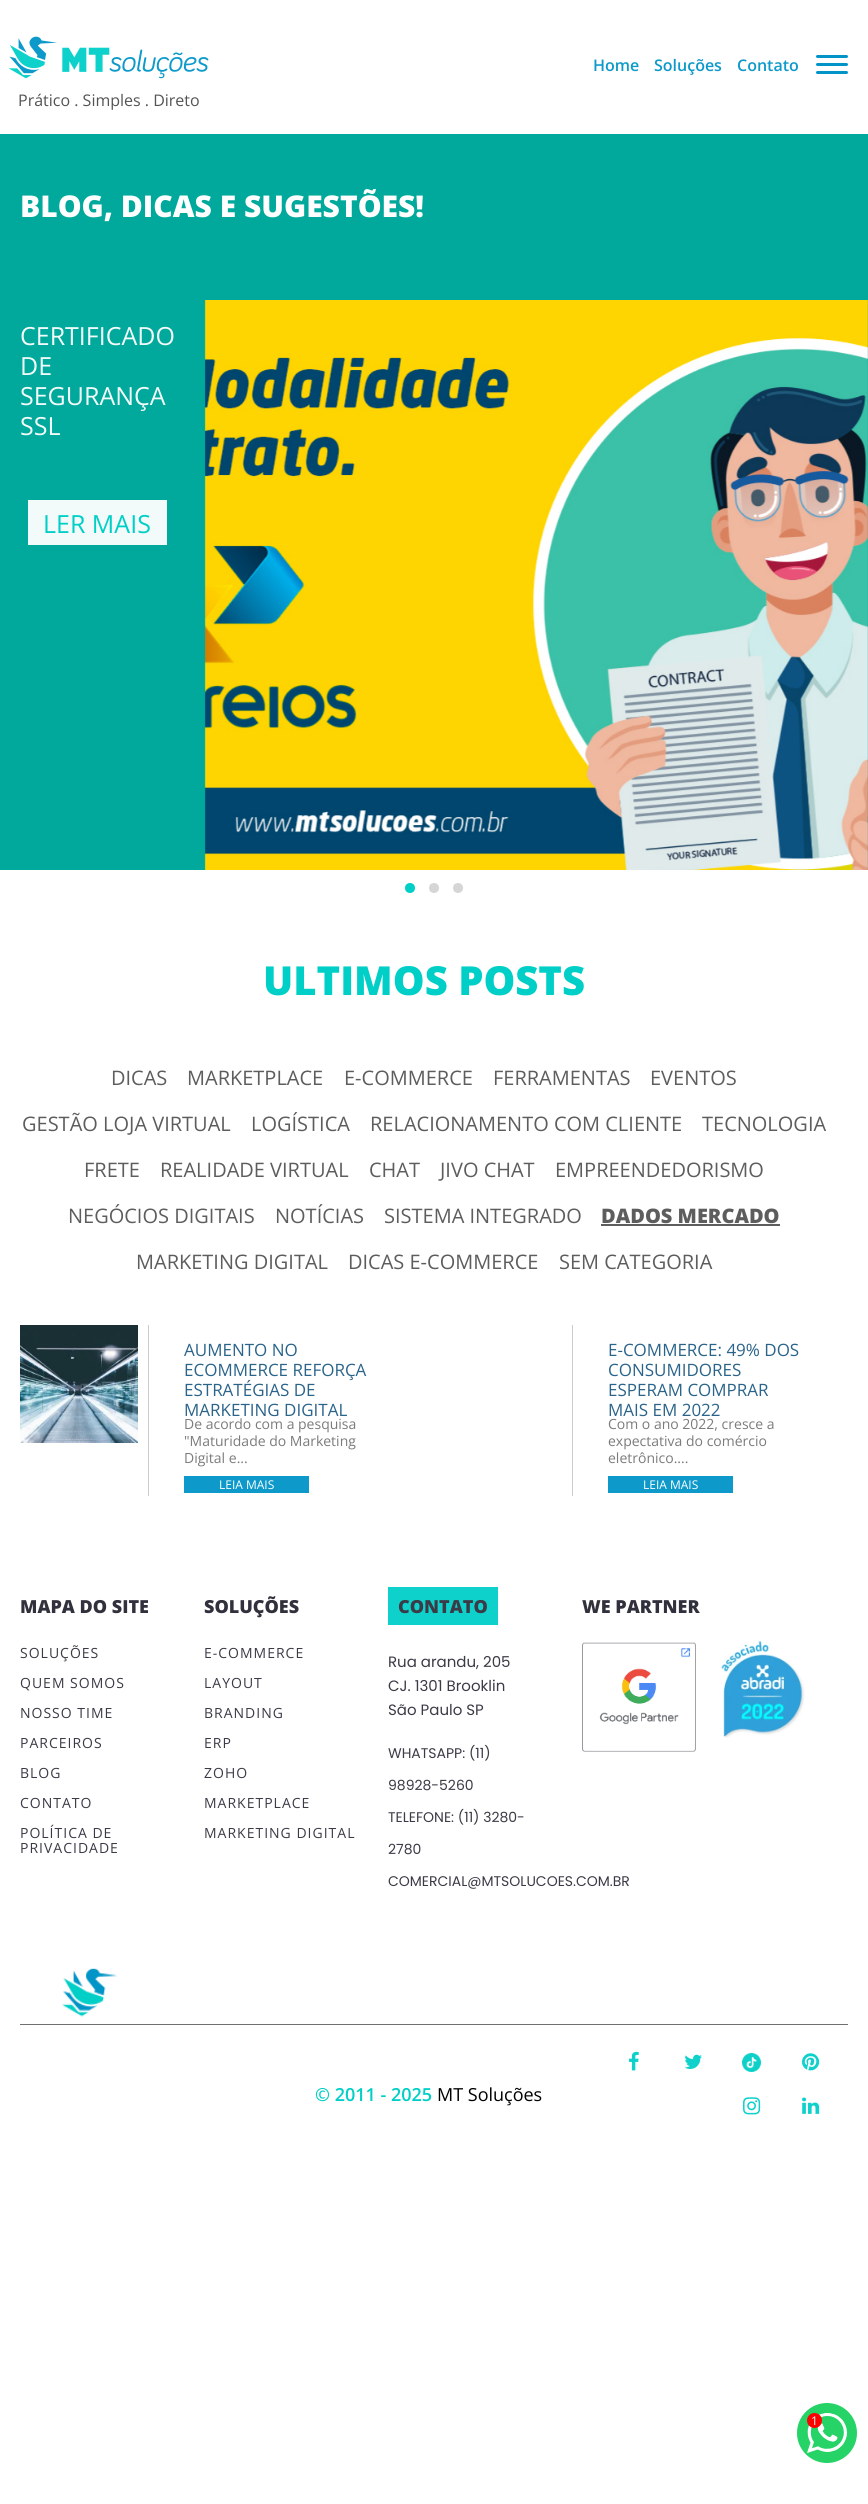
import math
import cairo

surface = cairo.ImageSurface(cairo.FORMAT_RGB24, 868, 2504)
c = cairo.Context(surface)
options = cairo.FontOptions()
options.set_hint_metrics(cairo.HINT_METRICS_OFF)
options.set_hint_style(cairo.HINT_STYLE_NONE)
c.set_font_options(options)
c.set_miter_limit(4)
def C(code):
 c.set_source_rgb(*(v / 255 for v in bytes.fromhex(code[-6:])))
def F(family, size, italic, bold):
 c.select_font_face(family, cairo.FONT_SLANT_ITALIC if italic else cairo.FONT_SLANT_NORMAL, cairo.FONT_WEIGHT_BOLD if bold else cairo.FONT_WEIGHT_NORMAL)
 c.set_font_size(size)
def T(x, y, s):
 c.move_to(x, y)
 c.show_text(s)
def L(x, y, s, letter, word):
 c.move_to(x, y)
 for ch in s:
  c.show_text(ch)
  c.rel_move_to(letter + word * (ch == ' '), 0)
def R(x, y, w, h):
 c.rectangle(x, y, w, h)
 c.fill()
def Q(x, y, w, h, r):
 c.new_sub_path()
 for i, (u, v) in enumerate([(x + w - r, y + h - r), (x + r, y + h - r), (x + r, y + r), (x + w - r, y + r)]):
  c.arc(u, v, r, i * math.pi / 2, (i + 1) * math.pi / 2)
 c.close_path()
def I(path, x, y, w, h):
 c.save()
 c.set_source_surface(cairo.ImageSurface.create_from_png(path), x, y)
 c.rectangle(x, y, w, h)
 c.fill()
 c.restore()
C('ffffff')
c.paint()
F('Open Sans SemiBold',16,0,0)
C('0d99ca')
T(593,71,'Home')
T(654,71,'Soluções')
T(737,71,'Contato')
C('0094c7')
Q(816,55,32,3,1.5)
c.fill()
Q(816,63,32,3,1.5)
c.fill()
Q(816,71,32,3,1.5)
c.fill()
I('1.png',8,36,201,43)
F('Open Sans',16,0,0)
C('545454')
T(18,106,'Prático . Simples . Direto')
C('00a99b')
R(0,134,868,736)
F('Open Sans ExtraBold',30,0,0)
C('ffffff')
T(20,217,'BLOG, DICAS E SUGESTÕES!')
F('Open Sans',25,0,0)
C('f2fbfa')
T(20,345,'CERTIFICADO')
T(20,375,'DE')
T(20,405,'SEGURANÇA')
T(20,435,'SSL')
R(28,500,139,45)
C('00cfc7')
T(43,533,'LER MAIS')
I('2.png',204,300,664,570)
c.arc(410,888,5,0,2 * math.pi)
c.fill()
C('d6d6d6')
c.arc(434,888,5,0,2 * math.pi)
c.fill()
c.arc(458,888,5,0,2 * math.pi)
c.fill()
F('Open Sans ExtraBold',40,0,0)
C('00cfc7')
T(263,995,'ULTIMOS POSTS')
F('Open Sans',20,0,0)
C('5d5d5d')
T(111,1085,'DICAS')
T(187,1085,'MARKETPLACE')
T(344,1085,'E-COMMERCE')
T(493,1085,'FERRAMENTAS')
T(650,1085,'EVENTOS')
T(22,1131,'GESTÃO LOJA VIRTUAL')
T(251,1131,'LOGÍSTICA')
T(370,1131,'RELACIONAMENTO COM CLIENTE')
T(702,1131,'TECNOLOGIA')
T(84,1177,'FRETE')
T(160,1177,'REALIDADE VIRTUAL')
T(369,1177,'CHAT')
T(440,1177,'JIVO CHAT')
T(555,1177,'EMPREENDEDORISMO')
T(68,1223,'NEGÓCIOS DIGITAIS')
T(275,1223,'NOTÍCIAS')
T(384,1223,'SISTEMA INTEGRADO')
F('Open Sans ExtraBold',20,0,0)
T(601,1223,'DADOS MERCADO')
R(601,1224,179,2)
F('Open Sans',20,0,0)
T(136,1269,'MARKETING DIGITAL')
T(348,1269,'DICAS E-COMMERCE')
T(559,1269,'SEM CATEGORIA')
I('3.png',20,1325,118,118)
C('cccccc')
R(148,1325,1,171)
F('Open Sans',17,0,0)
C('2b648a')
T(184,1356,'AUMENTO NO')
T(184,1376,'ECOMMERCE REFORÇA')
T(184,1396,'ESTRATÉGIAS DE')
T(184,1416,'MARKETING DIGITAL')
F('Open Sans',14,0,0)
C('7b7b7b')
T(184,1429,'De acordo com a pesquisa')
T(184,1446,'"Maturidade do Marketing')
T(184,1463,'Digital e...')
C('0d99ca')
R(184,1476,125,17)
F('Open Sans',12,0,0)
C('ffffff')
T(219,1489,'LEIA MAIS')
C('cccccc')
R(572,1325,1,171)
F('Open Sans',17,0,0)
C('2b648a')
T(608,1356,'E-COMMERCE: 49% DOS')
T(608,1376,'CONSUMIDORES')
T(608,1396,'ESPERAM COMPRAR')
T(608,1416,'MAIS EM 2022')
F('Open Sans',14,0,0)
C('7b7b7b')
T(608,1429,'Com o ano 2022, cresce a')
T(608,1446,'expectativa do comércio')
T(608,1463,'eletrônico....')
C('0d99ca')
R(608,1476,125,17)
F('Open Sans',12,0,0)
C('ffffff')
T(643,1489,'LEIA MAIS')
F('Open Sans ExtraBold',18,0,0)
C('31313d')
T(20,1613,'MAPA DO SITE')
F('Open Sans',14,0,0)
C('3b3b47')
L(20,1658,'SOLUÇÕES',1,0)
L(20,1688,'QUEM SOMOS',1,0)
L(20,1718,'NOSSO TIME',1,0)
L(20,1748,'PARCEIROS',1,0)
L(20,1778,'BLOG',1,0)
L(20,1808,'CONTATO',1,0)
L(20,1838,'POLÍTICA DE',1,0)
L(20,1853,'PRIVACIDADE',1,0)
F('Open Sans ExtraBold',18,0,0)
C('31313d')
T(204,1613,'SOLUÇÕES')
F('Open Sans',14,0,0)
C('3b3b47')
L(204,1658,'E-COMMERCE',1,0)
L(204,1688,'LAYOUT',1,0)
L(204,1718,'BRANDING',1,0)
L(204,1748,'ERP',1,0)
L(204,1778,'ZOHO',1,0)
L(204,1808,'MARKETPLACE',1,0)
L(204,1838,'MARKETING DIGITAL',1,0)
C('0dd1ca')
R(388,1587,110,38)
F('Open Sans ExtraBold',18,0,0)
C('3b3b47')
T(398,1613,'CONTATO')
F('Poppins',15,0,0)
T(388,1667,'Rua arandu, 205')
T(388,1691,'CJ. 1301 Brooklin')
T(388,1715,'São Paulo SP')
F('Poppins',14,0,0)
T(388,1758,'WHATSAPP: (11)')
T(388,1790,'98928-5260')
T(388,1822,'TELEFONE: (11) 3280-')
T(388,1854,'2780')
T(388,1886,'COMERCIAL@MTSOLUCOES.COM.BR')
F('Open Sans ExtraBold',18,0,0)
C('31313d')
T(582,1613,'WE PARTNER')
I('4.png',582,1642,114,110)
I('5.png',721,1640,84,98)
I('6.png',62,1968,55,49)
C('707070')
R(20,2024,828,1)
F('Open Sans SemiBold',18,0,0)
C('00cfc7')
T(315,2101,'© 2011 - 2025')
F('Open Sans',18,0,0)
C('000000')
T(437,2101,'MT Soluções')
I('7.png',629,2051,10,20)
I('8.png',684,2054,18,15)
I('9.png',742,2053,19,19)
I('10.png',802,2053,18,18)
I('11.png',743,2097,18,18)
I('12.png',802,2097,18,17)
C('25d366')
c.arc(827,2433,30,0,2 * math.pi)
c.fill()
I('13.png',807,2413,40,40)
C('ff0000')
c.arc(814.5,2420.5,7.5,0,2 * math.pi)
c.fill()
F('Open Sans',12,0,0)
C('ffffff')
T(811,2425,'1')
surface.write_to_png('o.png')
